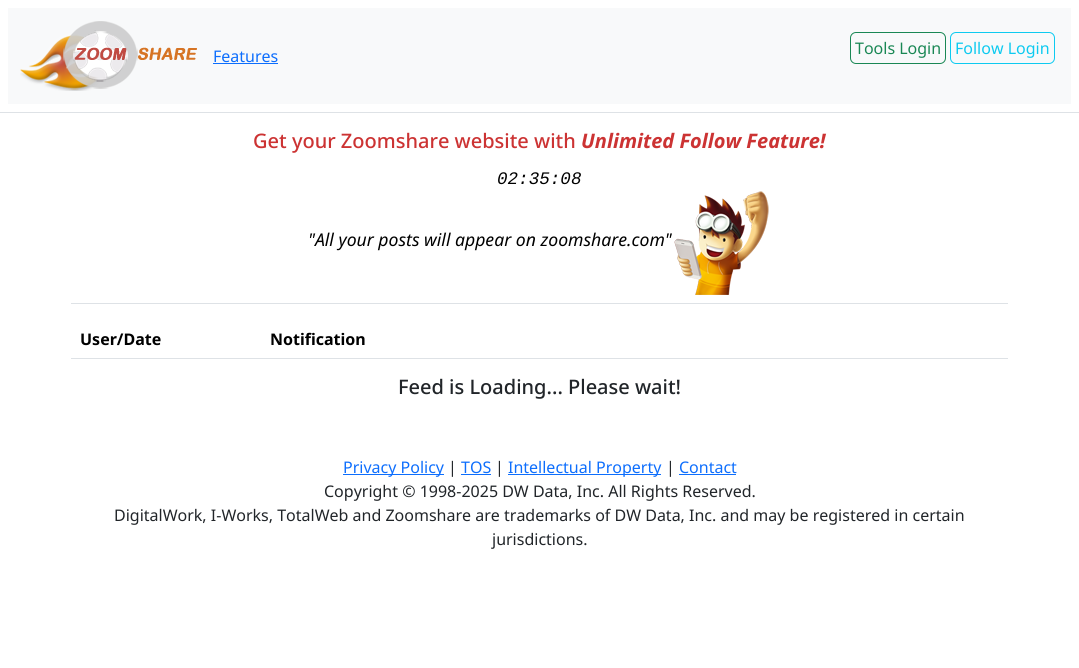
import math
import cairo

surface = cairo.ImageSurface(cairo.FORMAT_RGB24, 1079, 668)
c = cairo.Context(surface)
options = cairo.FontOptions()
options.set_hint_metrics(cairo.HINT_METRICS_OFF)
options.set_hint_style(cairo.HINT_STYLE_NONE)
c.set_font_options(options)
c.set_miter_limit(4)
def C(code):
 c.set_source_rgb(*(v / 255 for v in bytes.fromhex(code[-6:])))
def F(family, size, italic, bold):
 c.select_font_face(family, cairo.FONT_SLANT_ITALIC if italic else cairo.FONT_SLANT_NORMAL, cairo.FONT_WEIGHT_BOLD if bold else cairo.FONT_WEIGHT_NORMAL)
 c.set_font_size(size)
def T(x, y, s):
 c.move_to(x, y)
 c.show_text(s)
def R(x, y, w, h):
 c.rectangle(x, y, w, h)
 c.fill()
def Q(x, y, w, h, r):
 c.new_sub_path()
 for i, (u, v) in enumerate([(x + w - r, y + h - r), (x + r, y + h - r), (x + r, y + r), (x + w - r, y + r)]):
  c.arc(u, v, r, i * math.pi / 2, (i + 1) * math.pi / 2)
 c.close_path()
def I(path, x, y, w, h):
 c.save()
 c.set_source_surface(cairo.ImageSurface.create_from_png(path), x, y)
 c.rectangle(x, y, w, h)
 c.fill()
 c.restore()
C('ffffff')
c.paint()
C('dee2e6')
R(0,112,1079,1)
C('f8f9fa')
R(8,8,1063,96)
I('1.png',20,21,177,70)
F('Noto Sans',16,0,0)
C('0d6efd')
T(213,62,'Features')
R(213,63,65,1)
Q(850.5,32.5,95,31,5.5)
C('198754')
c.set_line_width(1)
c.stroke()
T(855,54,'Tools Login')
Q(950.5,32.5,104,31,5.5)
C('0dcaf0')
c.stroke()
T(955,54,'Follow Login')
F('Noto Sans Medium',20,0,0)
C('cc3333')
T(253,148,'Get your Zoomshare website with')
F('Noto Sans',20,1,1)
T(581,148,'Unlimited Follow Feature!')
C('dee2e6')
R(71,303,937,1)
F('Liberation Mono',17.6,1,0)
C('000000')
T(497,184,'02:35:08')
F('Noto Sans',17.6,1,0)
T(308,246,'"All your posts will appear on zoomshare.com"')
I('2.png',674,191,95,104)
F('Noto Sans',16,0,1)
T(80,345,'User/Date')
C('dee2e6')
R(71,358,937,1)
C('000000')
T(270,345,'Notification')
F('Noto Sans Medium',20,0,0)
C('212529')
T(398,394,'Feed is Loading... Please wait!')
C('0d6efd')
R(343,474,101,1)
F('Noto Sans',16,0,0)
T(343,473,'Privacy Policy')
C('212529')
T(448,473,'|')
C('0d6efd')
T(461,473,'TOS')
R(461,474,30,1)
C('212529')
T(495,473,'|')
C('0d6efd')
R(508,474,153,1)
T(508,473,'Intellectual Property')
C('212529')
T(666,473,'|')
C('0d6efd')
T(679,473,'Contact')
R(679,474,57,1)
C('212529')
T(324,497,'Copyright © 1998-2025 DW Data, Inc. All Rights Reserved.')
T(114,521,'DigitalWork, I-Works, TotalWeb and Zoomshare are trademarks of DW Data, Inc. and may be registered in certain')
T(492,545,'jurisdictions.')
surface.write_to_png('o.png')
